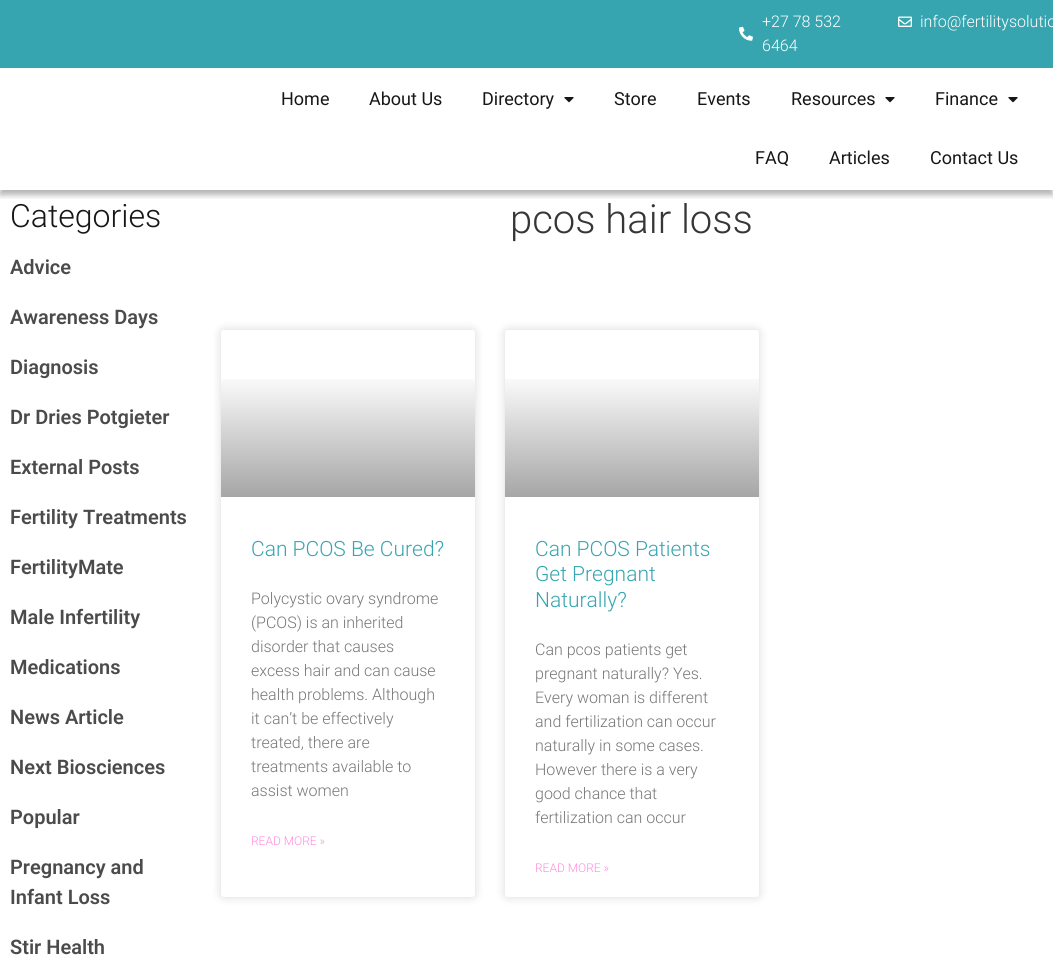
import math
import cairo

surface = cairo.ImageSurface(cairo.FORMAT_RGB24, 1053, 962)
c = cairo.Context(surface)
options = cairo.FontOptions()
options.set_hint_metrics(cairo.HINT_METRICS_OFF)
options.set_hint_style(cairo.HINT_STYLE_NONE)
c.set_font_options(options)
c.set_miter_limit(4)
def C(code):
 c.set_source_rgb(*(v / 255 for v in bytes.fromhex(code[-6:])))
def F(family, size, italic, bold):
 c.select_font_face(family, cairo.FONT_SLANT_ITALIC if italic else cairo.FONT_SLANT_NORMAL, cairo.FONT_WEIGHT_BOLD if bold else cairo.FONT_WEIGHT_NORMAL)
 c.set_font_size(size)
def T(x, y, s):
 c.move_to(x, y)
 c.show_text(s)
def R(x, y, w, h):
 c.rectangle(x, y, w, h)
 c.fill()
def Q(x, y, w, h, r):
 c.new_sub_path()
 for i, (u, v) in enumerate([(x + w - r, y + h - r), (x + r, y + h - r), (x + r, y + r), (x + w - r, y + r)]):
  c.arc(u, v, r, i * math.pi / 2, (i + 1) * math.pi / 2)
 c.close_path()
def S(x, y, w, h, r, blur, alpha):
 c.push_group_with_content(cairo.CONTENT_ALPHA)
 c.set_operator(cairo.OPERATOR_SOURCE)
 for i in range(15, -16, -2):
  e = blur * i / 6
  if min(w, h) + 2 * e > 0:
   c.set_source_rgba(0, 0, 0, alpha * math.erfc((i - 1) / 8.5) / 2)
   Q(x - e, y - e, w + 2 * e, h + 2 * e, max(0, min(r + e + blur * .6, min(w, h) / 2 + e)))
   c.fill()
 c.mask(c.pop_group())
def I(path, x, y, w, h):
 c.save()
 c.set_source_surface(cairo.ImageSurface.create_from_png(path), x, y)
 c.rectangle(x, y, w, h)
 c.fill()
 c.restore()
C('ffffff')
c.paint()
C('36a5b0')
R(0,0,1053,68)
I('1.png',739,26,14,15)
F('Roboto Light',16,0,0)
C('ffffff')
T(762,27,'+27 78 532')
T(762,51,'6464')
I('2.png',898,16,14,11)
T(920,27,'info@fertilitysolutio')
c.save()
c.rectangle(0,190,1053,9)
c.clip()
C('000000')
S(0,73,1053,122,0,3,.3)
c.restore()
F('Roboto',18,0,0)
C('171717')
T(281,105,'Home')
T(369,105,'About Us')
T(482,105,'Directory')
I('3.png',564,97,10,6)
T(614,105,'Store')
T(697,105,'Events')
T(791,105,'Resources')
I('3.png',885,97,10,6)
T(935,105,'Finance')
I('3.png',1008,97,10,6)
T(755,164,'FAQ')
T(829,164,'Articles')
T(930,164,'Contact Us')
F('Roboto Light',32,0,0)
T(10,227,'Categories')
F('Roboto SemiBold',20,0,0)
C('4b4b4b')
T(10,274,'Advice')
T(10,324,'Awareness Days')
T(10,374,'Diagnosis')
T(10,424,'Dr Dries Potgieter')
T(10,474,'External Posts')
T(10,524,'Fertility Treatments')
T(10,574,'FertilityMate')
T(10,624,'Male Infertility')
T(10,674,'Medications')
T(10,724,'News Article')
T(10,774,'Next Biosciences')
T(10,824,'Popular')
T(10,874,'Pregnancy and')
T(10,904,'Infant Loss')
T(10,954,'Stir Health')
F('Roboto Light',40,0,0)
C('363636')
T(510,233,'pcos hair loss')
C('000000')
S(221,330,254,567,3,5,.15)
C('ffffff')
Q(221,330,254,567,3)
c.fill()
gradient = cairo.LinearGradient(348,497,348,330)
gradient.add_color_stop_rgba(0,0,0,0,.35)
gradient.add_color_stop_rgba(.75,0,0,0,0)
c.set_source(gradient)
R(221,379,254,118)
F('Roboto Light',21,0,0)
C('36a5b0')
T(251,556,'Can PCOS Be Cured?')
F('Roboto Light',16,0,0)
C('777777')
T(251,604,'Polycystic ovary syndrome')
T(251,628,'(PCOS) is an inherited')
T(251,652,'disorder that causes')
T(251,676,'excess hair and can cause')
T(251,700,'health problems. Although')
T(251,724,'it can’t be effectively')
T(251,748,'treated, there are')
T(251,772,'treatments available to')
T(251,796,'assist women')
F('Roboto Light',12,0,0)
C('ff8cdf')
T(251,845,'READ MORE »')
C('000000')
S(505,330,254,567,3,5,.15)
C('ffffff')
Q(505,330,254,567,3)
c.fill()
gradient = cairo.LinearGradient(632,497,632,330)
gradient.add_color_stop_rgba(0,0,0,0,.35)
gradient.add_color_stop_rgba(.75,0,0,0,0)
c.set_source(gradient)
R(505,379,254,118)
F('Roboto Light',21,0,0)
C('36a5b0')
T(535,556,'Can PCOS Patients')
T(535,581,'Get Pregnant')
T(535,607,'Naturally?')
F('Roboto Light',16,0,0)
C('777777')
T(535,655,'Can pcos patients get')
T(535,679,'pregnant naturally? Yes.')
T(535,703,'Every woman is different')
T(535,727,'and fertilization can occur')
T(535,751,'naturally in some cases.')
T(535,775,'However there is a very')
T(535,799,'good chance that')
T(535,823,'fertilization can occur')
F('Roboto Light',12,0,0)
C('ff8cdf')
T(535,872,'READ MORE »')
surface.write_to_png('o.png')
